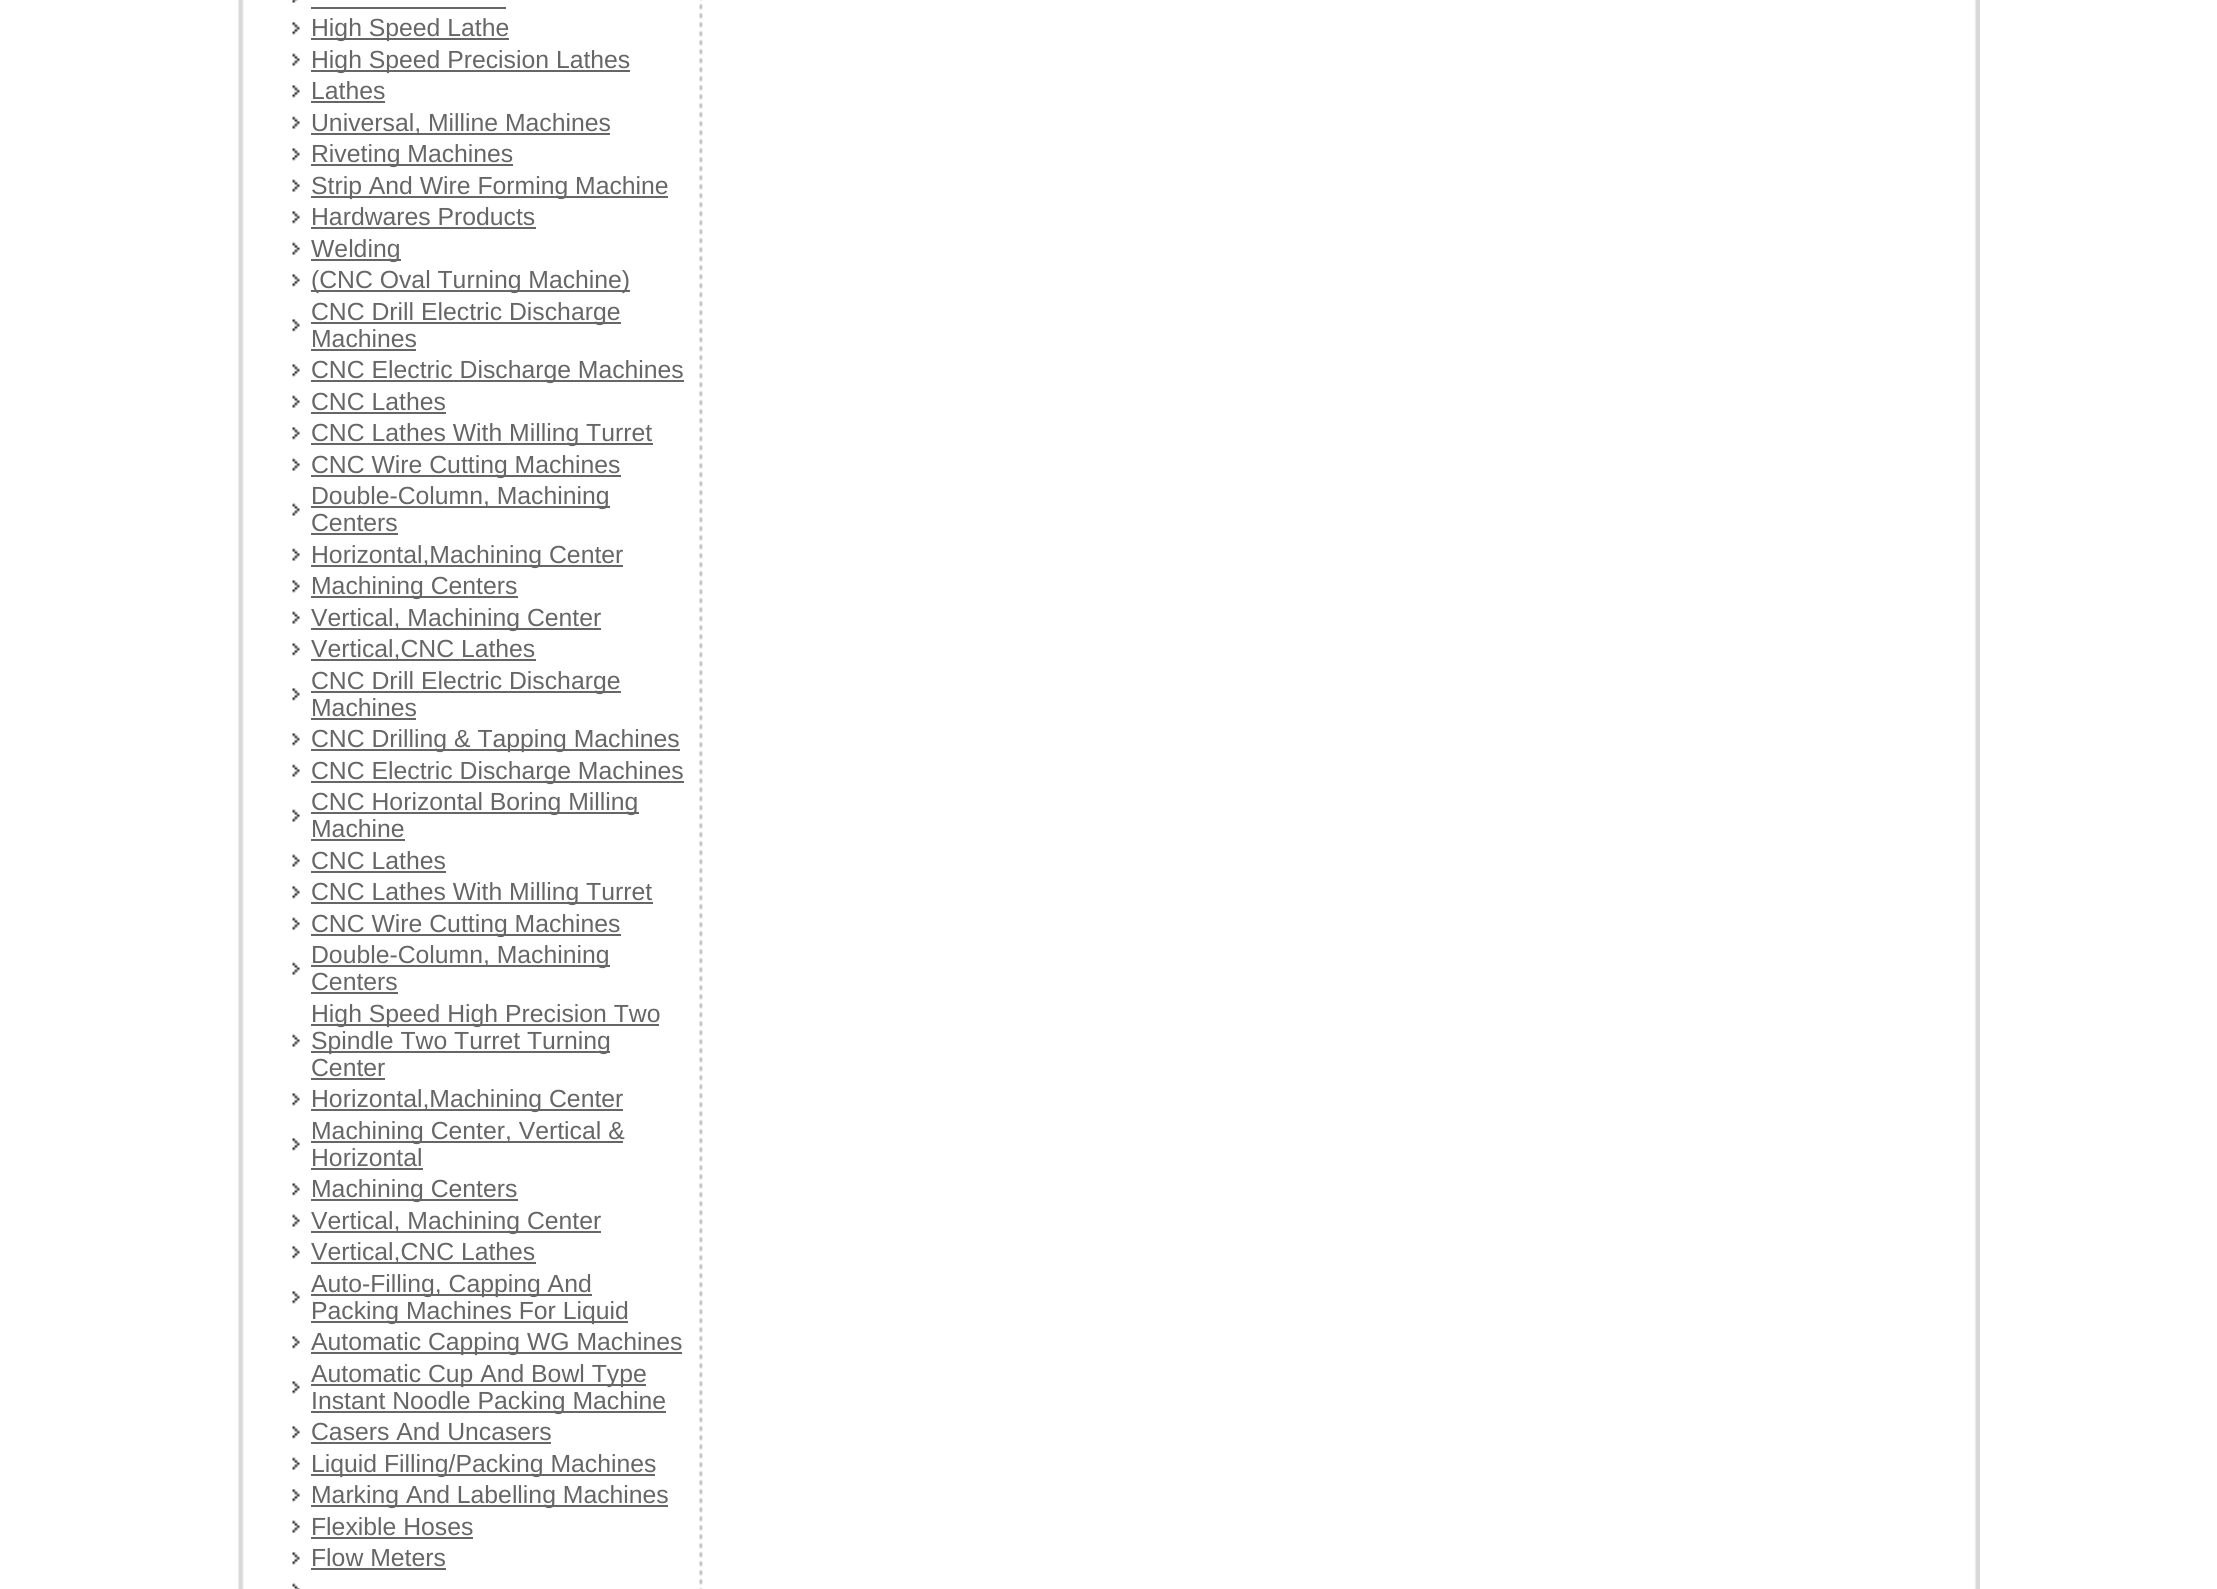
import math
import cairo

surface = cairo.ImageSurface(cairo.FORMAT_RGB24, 2217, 1589)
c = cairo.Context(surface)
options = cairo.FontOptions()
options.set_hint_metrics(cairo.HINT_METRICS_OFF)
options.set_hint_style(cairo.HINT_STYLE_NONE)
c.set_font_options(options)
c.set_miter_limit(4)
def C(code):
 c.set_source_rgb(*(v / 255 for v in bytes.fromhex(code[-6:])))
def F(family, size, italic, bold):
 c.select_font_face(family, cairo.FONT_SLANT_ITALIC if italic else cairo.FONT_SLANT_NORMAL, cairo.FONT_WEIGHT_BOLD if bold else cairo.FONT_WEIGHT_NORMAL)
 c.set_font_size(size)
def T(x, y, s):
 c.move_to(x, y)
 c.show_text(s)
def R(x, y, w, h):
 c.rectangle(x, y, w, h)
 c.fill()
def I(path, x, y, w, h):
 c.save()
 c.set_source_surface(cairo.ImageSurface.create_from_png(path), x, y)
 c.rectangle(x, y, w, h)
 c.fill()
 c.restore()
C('ffffff')
c.paint()
I('1.png',238,0,1742,1589)
I('2.png',699,0,4,1589)
I('3.png',292,0,6,3)
C('666666')
R(311,7,195,2)
I('4.png',292,22,8,13)
R(311,38,198,2)
F('Liberation Sans',24.75,0,0)
T(311,36,'High Speed Lathe')
I('5.png',292,53,8,13)
R(311,70,319,2)
T(311,68,'High Speed Precision Lathes')
I('4.png',292,85,8,13)
T(311,99,'Lathes')
R(311,101,74,2)
I('5.png',292,116,8,13)
R(311,133,299,2)
T(311,131,'Universal, Milline Machines')
I('4.png',292,148,8,13)
R(311,164,202,2)
T(311,162,'Riveting Machines')
I('5.png',292,179,8,13)
R(311,196,357,2)
T(311,194,'Strip And Wire Forming Machine')
I('4.png',292,211,8,13)
T(311,225,'Hardwares Products')
R(311,227,225,2)
I('6.png',292,242,8,13)
R(311,259,90,2)
T(311,257,'Welding')
I('4.png',292,274,8,13)
R(311,290,319,2)
T(311,288,'(CNC Oval Turning Machine)')
I('4.png',292,319,8,13)
R(311,322,310,2)
T(311,320,'CNC Drill Electric Discharge')
T(311,347,'Machines')
R(311,349,105,2)
I('4.png',292,364,8,13)
R(311,380,373,2)
T(311,378,'CNC Electric Discharge Machines')
I('5.png',292,395,8,13)
T(311,410,'CNC Lathes')
R(311,412,135,2)
I('4.png',292,427,8,13)
R(311,443,342,2)
T(311,441,'CNC Lathes With Milling Turret')
I('5.png',292,458,8,13)
R(311,475,310,2)
T(311,473,'CNC Wire Cutting Machines')
I('5.png',292,503,8,13)
R(311,506,299,2)
T(311,504,'Double-Column, Machining')
T(311,531,'Centers')
R(311,533,87,2)
I('5.png',292,548,8,13)
R(311,565,312,2)
T(311,563,'Horizontal,Machining Center')
I('4.png',292,580,8,13)
R(311,596,207,2)
T(311,594,'Machining Centers')
I('5.png',292,611,8,13)
R(311,628,290,2)
T(311,626,'Vertical, Machining Center')
I('7.png',292,643,8,13)
R(311,659,225,2)
T(311,657,'Vertical,CNC Lathes')
I('4.png',292,688,8,13)
R(311,691,310,2)
T(311,689,'CNC Drill Electric Discharge')
T(311,716,'Machines')
R(311,718,105,2)
I('4.png',292,733,8,13)
R(311,749,369,2)
T(311,747,'CNC Drilling & Tapping Machines')
I('5.png',292,764,8,13)
R(311,781,373,2)
T(311,779,'CNC Electric Discharge Machines')
I('5.png',292,809,8,13)
R(311,812,328,2)
T(311,810,'CNC Horizontal Boring Milling')
T(311,837,'Machine')
R(311,839,94,2)
I('5.png',292,854,8,13)
T(311,869,'CNC Lathes')
R(311,871,135,2)
I('4.png',292,886,8,13)
R(311,902,342,2)
T(311,900,'CNC Lathes With Milling Turret')
I('5.png',292,917,8,13)
R(311,934,310,2)
T(311,932,'CNC Wire Cutting Machines')
I('5.png',292,962,8,13)
R(311,965,299,2)
T(311,963,'Double-Column, Machining')
T(311,990,'Centers')
R(311,992,87,2)
I('5.png',292,1034,8,13)
R(311,1024,348,2)
T(311,1022,'High Speed High Precision Two')
R(311,1051,299,2)
T(311,1049,'Spindle Two Turret Turning')
T(311,1076,'Center')
R(311,1078,74,2)
I('4.png',292,1093,8,13)
R(311,1109,312,2)
T(311,1107,'Horizontal,Machining Center')
I('4.png',292,1138,8,13)
R(311,1141,312,2)
T(311,1139,'Machining Center, Vertical &')
T(311,1166,'Horizontal')
R(311,1168,112,2)
I('4.png',292,1183,8,13)
R(311,1199,207,2)
T(311,1197,'Machining Centers')
I('5.png',292,1214,8,13)
R(311,1231,290,2)
T(311,1229,'Vertical, Machining Center')
I('4.png',292,1246,8,13)
R(311,1262,225,2)
T(311,1260,'Vertical,CNC Lathes')
I('4.png',292,1291,8,13)
R(311,1294,281,2)
T(311,1292,'Auto-Filling, Capping And')
R(311,1321,317,2)
T(311,1319,'Packing Machines For Liquid')
I('4.png',292,1336,8,13)
R(311,1352,371,2)
T(311,1350,'Automatic Capping WG Machines')
I('4.png',292,1381,8,13)
R(311,1384,335,2)
T(311,1382,'Automatic Cup And Bowl Type')
R(311,1411,355,2)
T(311,1409,'Instant Noodle Packing Machine')
I('4.png',292,1426,8,13)
T(311,1440,'Casers And Uncasers')
R(311,1442,240,2)
I('5.png',292,1457,8,13)
R(311,1474,344,2)
T(311,1472,'Liquid Filling/Packing Machines')
I('4.png',292,1489,8,13)
R(311,1505,357,2)
T(311,1503,'Marking And Labelling Machines')
I('5.png',292,1520,8,13)
T(311,1535,'Flexible Hoses')
R(311,1537,162,2)
I('4.png',292,1552,8,13)
T(311,1566,'Flow Meters')
R(311,1568,135,2)
I('8.png',292,1583,8,6)
surface.write_to_png('o.png')
